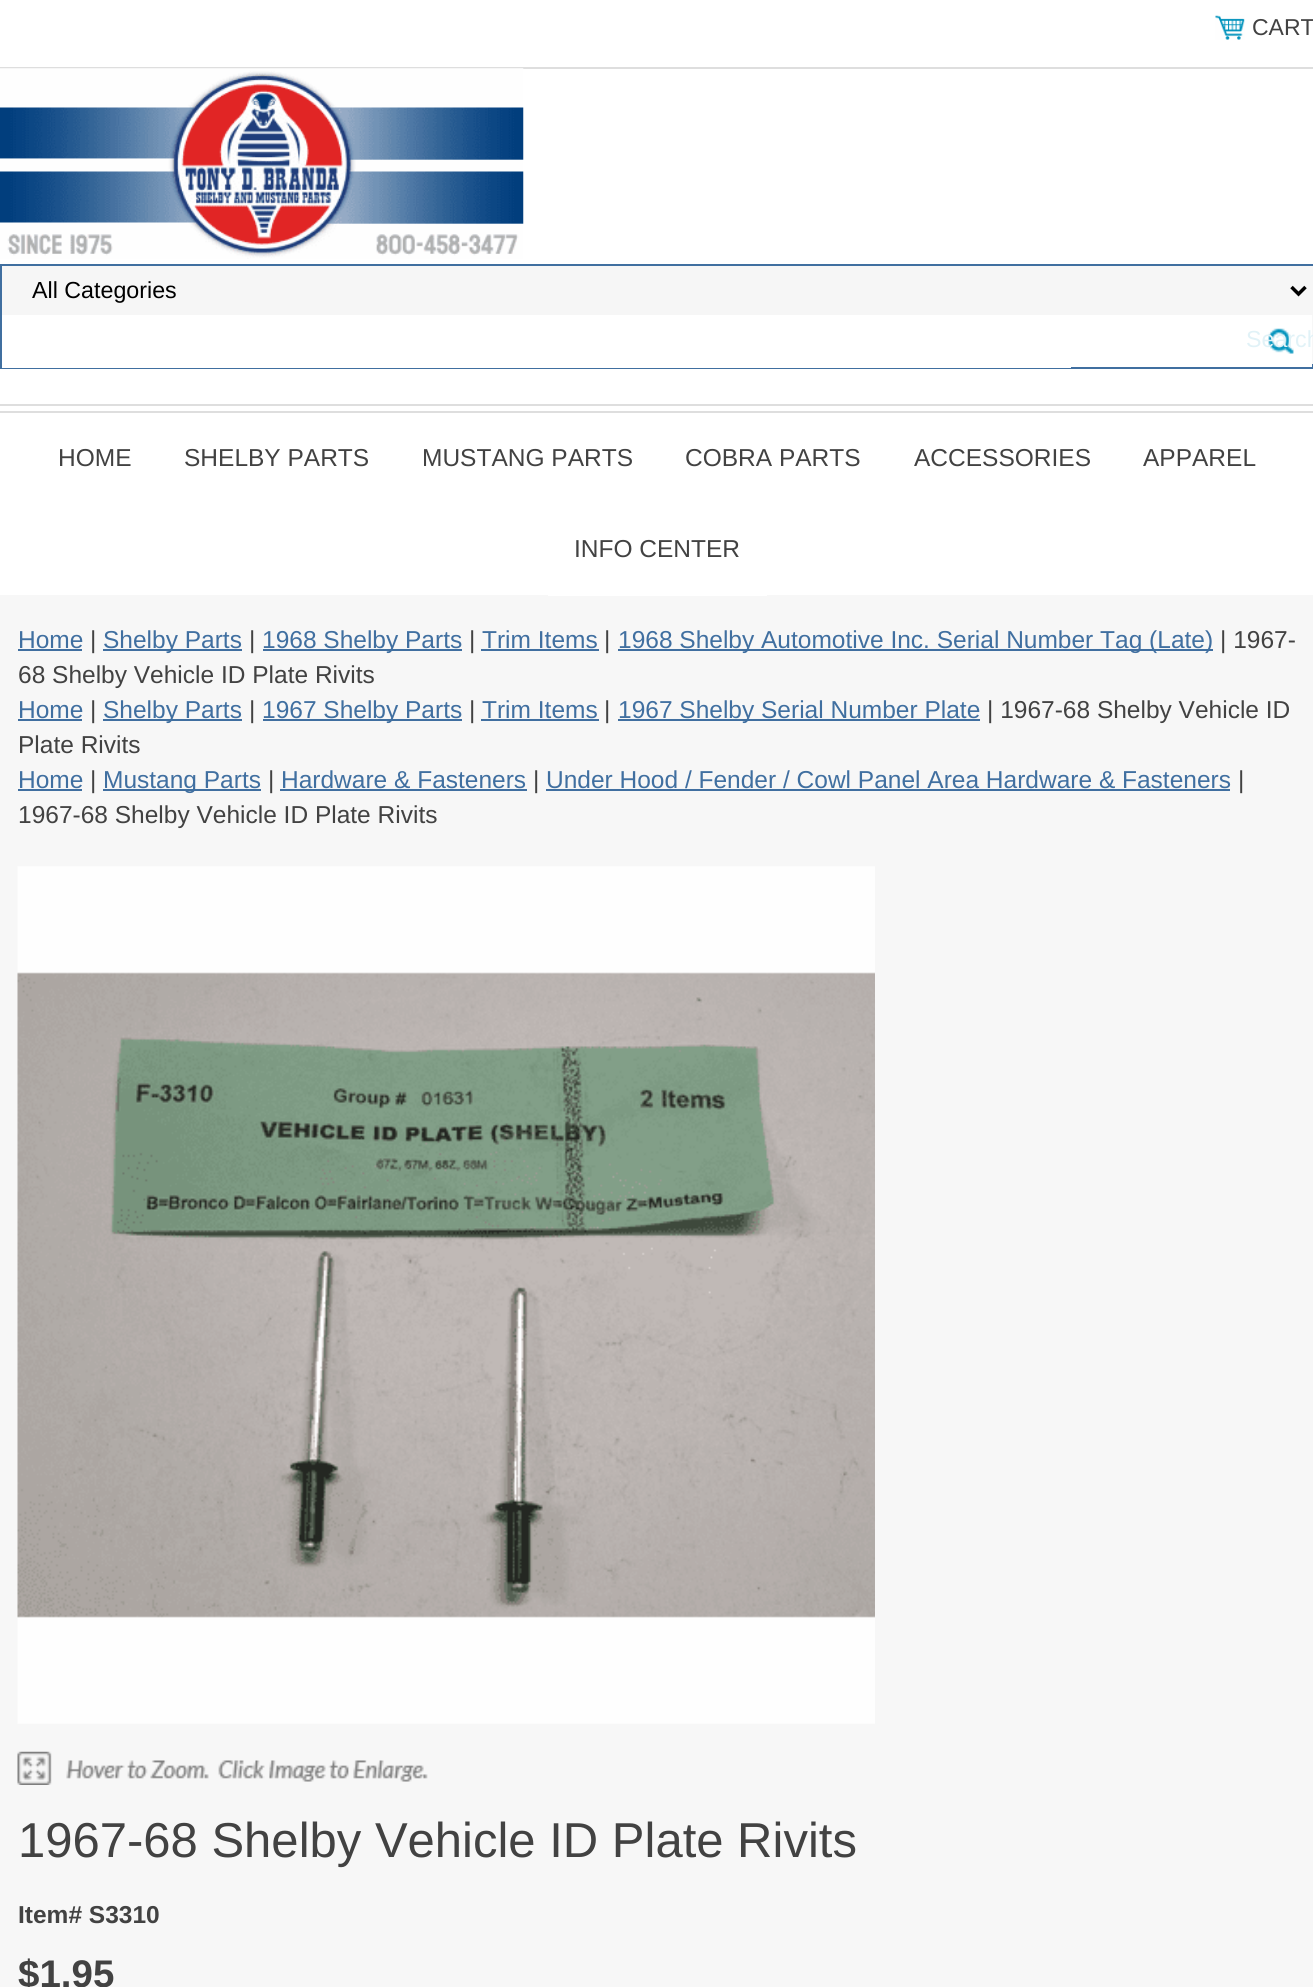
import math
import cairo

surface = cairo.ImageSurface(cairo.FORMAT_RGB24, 1313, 1987)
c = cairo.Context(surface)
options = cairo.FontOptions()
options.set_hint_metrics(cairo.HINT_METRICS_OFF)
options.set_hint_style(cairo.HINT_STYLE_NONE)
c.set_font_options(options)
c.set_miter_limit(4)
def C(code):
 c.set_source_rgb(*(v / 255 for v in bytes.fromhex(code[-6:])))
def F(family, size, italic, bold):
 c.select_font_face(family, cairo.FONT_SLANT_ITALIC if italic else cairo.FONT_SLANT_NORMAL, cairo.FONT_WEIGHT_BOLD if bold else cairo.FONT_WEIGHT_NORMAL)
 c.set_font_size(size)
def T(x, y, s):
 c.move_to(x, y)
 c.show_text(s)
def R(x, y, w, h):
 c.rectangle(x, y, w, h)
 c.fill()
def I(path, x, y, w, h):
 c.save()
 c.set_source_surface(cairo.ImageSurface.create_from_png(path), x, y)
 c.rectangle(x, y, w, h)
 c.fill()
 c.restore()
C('ffffff')
c.paint()
I('1.png',1215,15,30,25)
F('Liberation Sans',23,0,0)
C('424242')
T(1252,35,'CART')
C('dedede')
R(0,67,1313,2)
R(0,404,1313,2)
I('2.png',0,68,524,191)
c.rectangle(1,265,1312,103)
C('406fa0')
c.stroke()
C('f6f6f6')
R(2,266,1311,49)
c.new_path()
c.move_to(1291.5,287)
c.line_to(1298.5,294)
c.line_to(1305.5,287)
C('000000')
c.set_line_width(3.5)
c.stroke()
F('Liberation Sans',23.25,0,0)
T(32,298,'All Categories')
C('efefef')
R(1312,315,1,49)
I('3.png',1246,315,67,49)
C('e1f2f7')
T(1246,347,'Search')
C('ffffff')
R(2,367,1069,1)
C('dedede')
R(0,411,1313,2)
F('Liberation Sans',24.5,0,0)
C('424242')
T(58,466,'HOME')
T(184,466,'SHELBY PARTS')
T(422,466,'MUSTANG PARTS')
T(685,466,'COBRA PARTS')
T(914,466,'ACCESSORIES')
T(1143,466,'APPAREL')
C('f7f7f7')
R(0,595,1313,1392)
C('ffffff')
R(548,595,219,1)
C('424242')
T(574,557,'INFO CENTER')
C('406fa0')
T(18,648,'Home')
R(18,649,64,2)
C('424242')
T(90,648,'|')
C('406fa0')
R(103,649,139,2)
T(103,648,'Shelby Parts')
C('424242')
T(249,648,'|')
C('406fa0')
R(263,649,199,2)
T(262,648,'1968 Shelby Parts')
C('424242')
T(469,648,'|')
C('406fa0')
T(482,648,'Trim Items')
R(481,649,118,2)
C('424242')
T(604,648,'|')
C('406fa0')
R(618,649,595,2)
T(618,648,'1968 Shelby Automotive Inc. Serial Number Tag (Late)')
C('424242')
T(1220,648,'| 1967-')
T(18,683,'68 Shelby Vehicle ID Plate Rivits')
C('406fa0')
T(18,718,'Home')
R(18,719,64,2)
C('424242')
T(90,718,'|')
C('406fa0')
R(103,719,139,2)
T(103,718,'Shelby Parts')
C('424242')
T(249,718,'|')
C('406fa0')
R(263,719,199,2)
T(262,718,'1967 Shelby Parts')
C('424242')
T(469,718,'|')
C('406fa0')
T(482,718,'Trim Items')
R(481,719,118,2)
C('424242')
T(604,718,'|')
C('406fa0')
R(618,719,362,2)
T(618,718,'1967 Shelby Serial Number Plate')
C('424242')
T(987,718,'| 1967-68 Shelby Vehicle ID')
T(18,753,'Plate Rivits')
C('406fa0')
T(18,788,'Home')
R(18,789,64,2)
C('424242')
T(90,788,'|')
C('406fa0')
R(103,789,158,2)
T(103,788,'Mustang Parts')
C('424242')
T(268,788,'|')
C('406fa0')
T(281,788,'Hardware & Fasteners')
R(280,789,247,2)
C('424242')
T(533,788,'|')
C('406fa0')
T(546,788,'Under Hood / Fender / Cowl Panel Area Hardware & Fasteners')
R(546,789,684,2)
C('424242')
T(1238,788,'|')
T(18,823,'1967-68 Shelby Vehicle ID Plate Rivits')
I('4.png',17,1751,411,34)
I('5.png',17,866,858,858)
F('Liberation Sans',49,0,0)
T(18,1857,'1967-68 Shelby Vehicle ID Plate Rivits')
F('Liberation Sans',24.5,0,1)
T(18,1923,'Item# S3310')
F('Liberation Sans',38.5,0,1)
T(18,1987,'$1.95')
surface.write_to_png('o.png')
